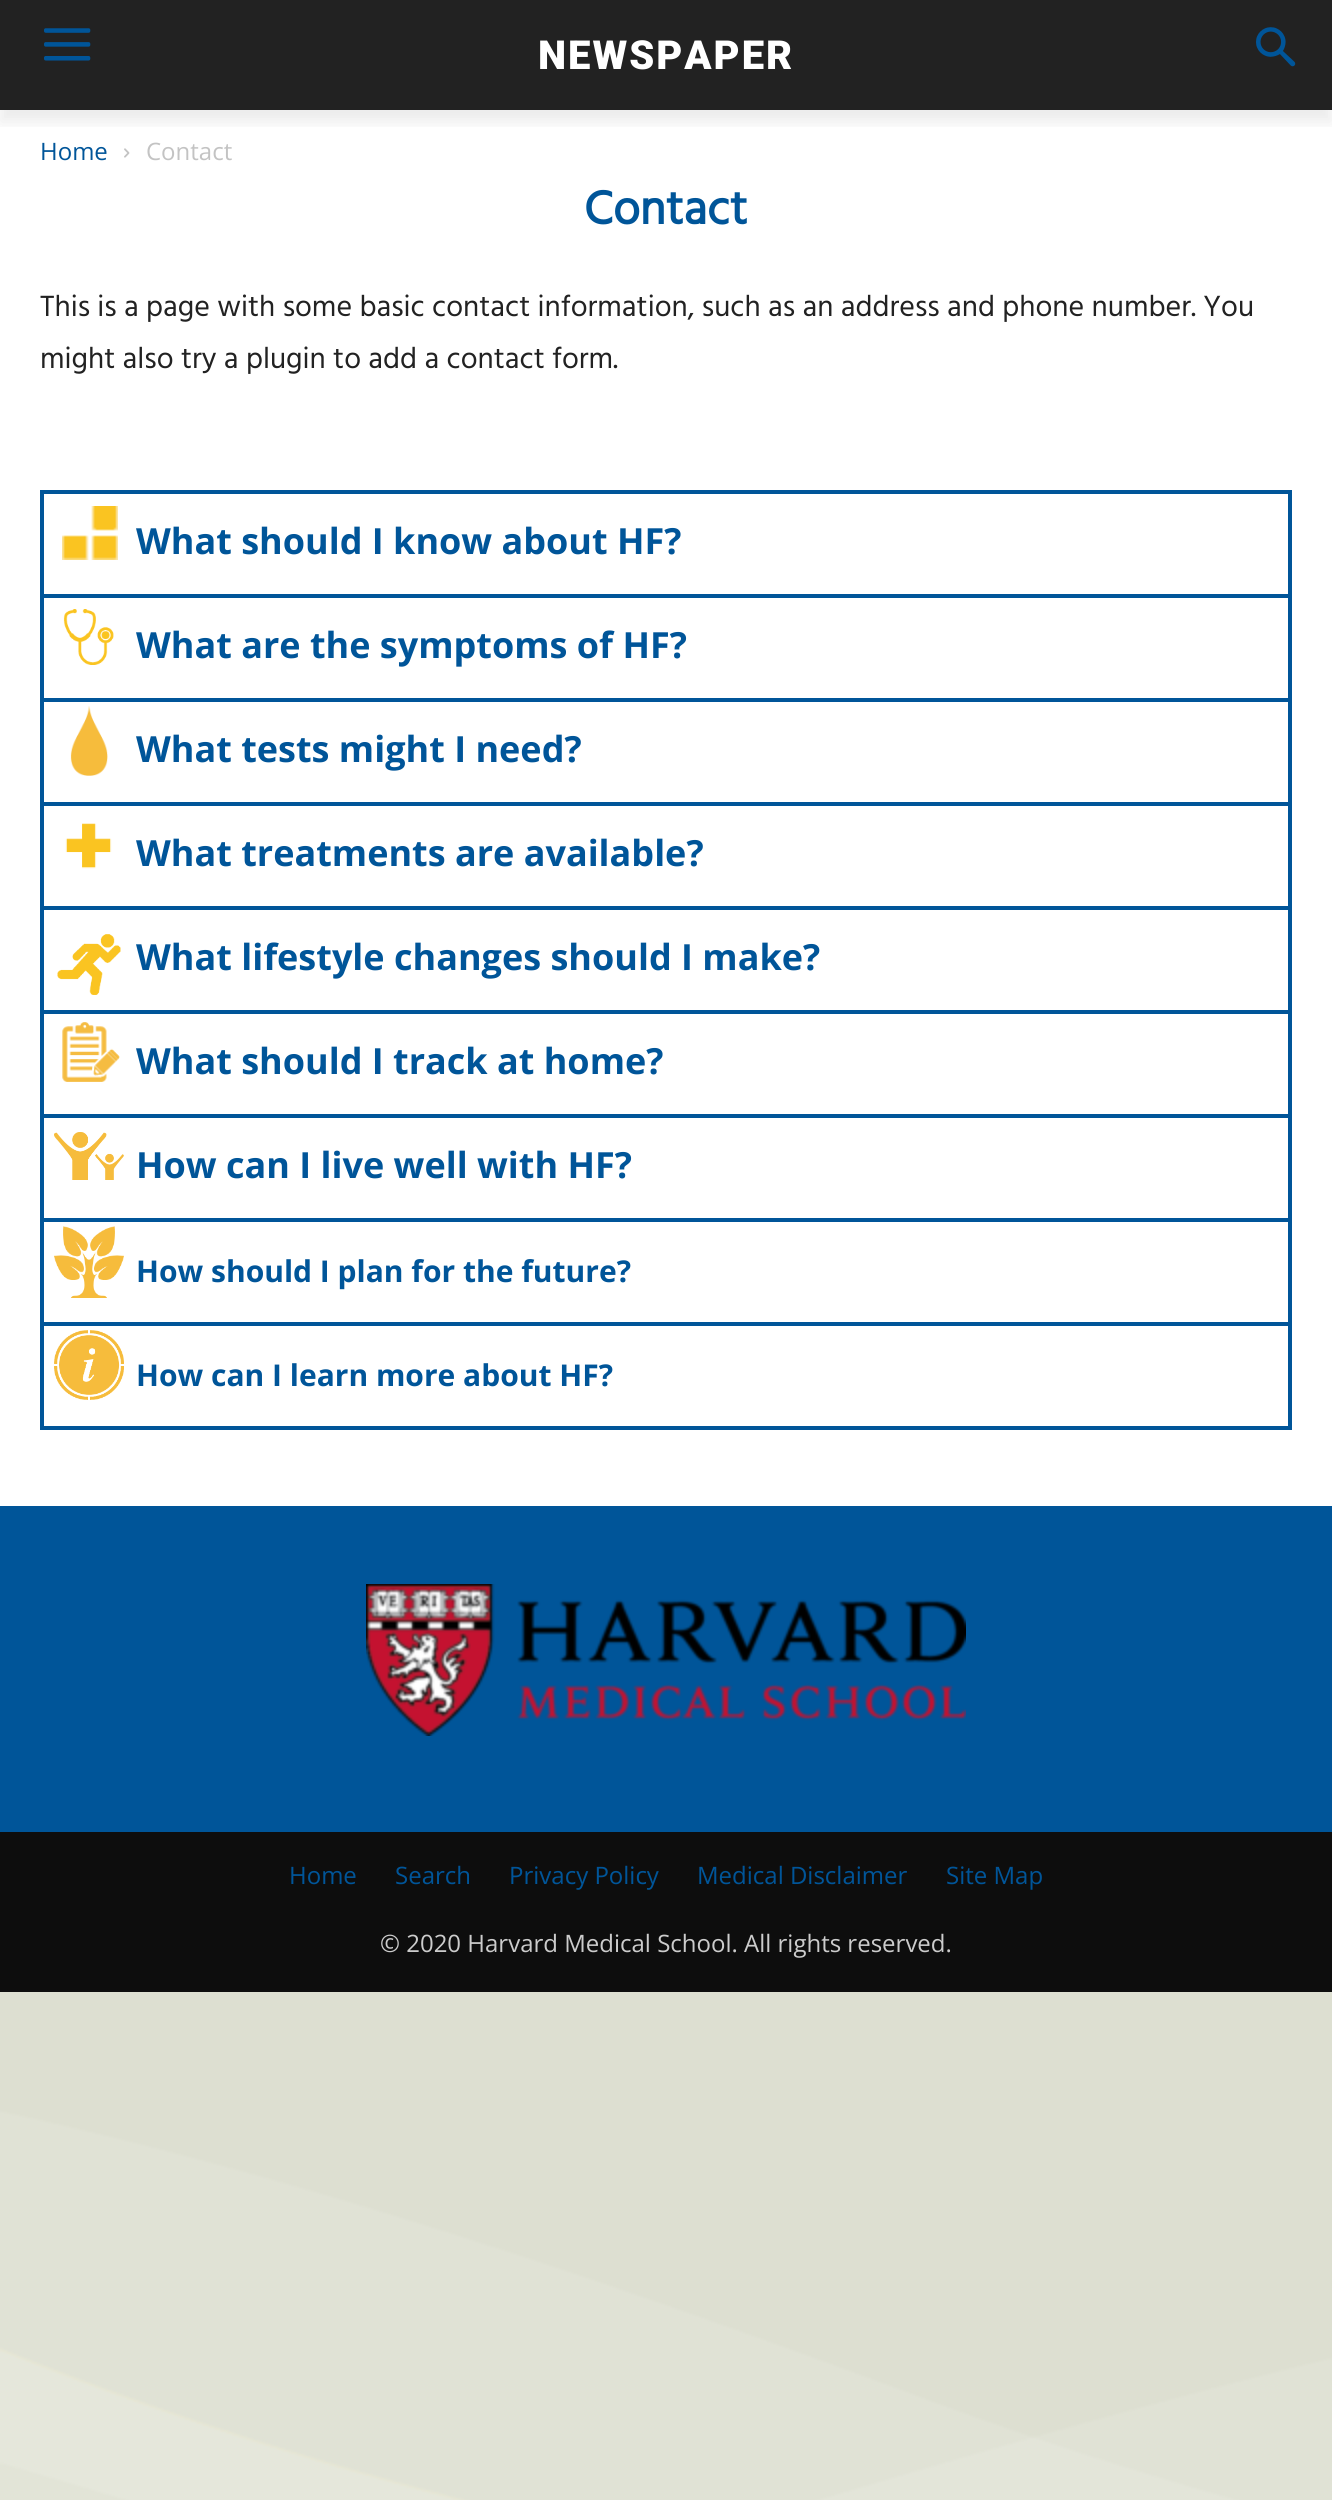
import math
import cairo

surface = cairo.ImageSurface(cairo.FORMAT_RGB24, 1332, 2500)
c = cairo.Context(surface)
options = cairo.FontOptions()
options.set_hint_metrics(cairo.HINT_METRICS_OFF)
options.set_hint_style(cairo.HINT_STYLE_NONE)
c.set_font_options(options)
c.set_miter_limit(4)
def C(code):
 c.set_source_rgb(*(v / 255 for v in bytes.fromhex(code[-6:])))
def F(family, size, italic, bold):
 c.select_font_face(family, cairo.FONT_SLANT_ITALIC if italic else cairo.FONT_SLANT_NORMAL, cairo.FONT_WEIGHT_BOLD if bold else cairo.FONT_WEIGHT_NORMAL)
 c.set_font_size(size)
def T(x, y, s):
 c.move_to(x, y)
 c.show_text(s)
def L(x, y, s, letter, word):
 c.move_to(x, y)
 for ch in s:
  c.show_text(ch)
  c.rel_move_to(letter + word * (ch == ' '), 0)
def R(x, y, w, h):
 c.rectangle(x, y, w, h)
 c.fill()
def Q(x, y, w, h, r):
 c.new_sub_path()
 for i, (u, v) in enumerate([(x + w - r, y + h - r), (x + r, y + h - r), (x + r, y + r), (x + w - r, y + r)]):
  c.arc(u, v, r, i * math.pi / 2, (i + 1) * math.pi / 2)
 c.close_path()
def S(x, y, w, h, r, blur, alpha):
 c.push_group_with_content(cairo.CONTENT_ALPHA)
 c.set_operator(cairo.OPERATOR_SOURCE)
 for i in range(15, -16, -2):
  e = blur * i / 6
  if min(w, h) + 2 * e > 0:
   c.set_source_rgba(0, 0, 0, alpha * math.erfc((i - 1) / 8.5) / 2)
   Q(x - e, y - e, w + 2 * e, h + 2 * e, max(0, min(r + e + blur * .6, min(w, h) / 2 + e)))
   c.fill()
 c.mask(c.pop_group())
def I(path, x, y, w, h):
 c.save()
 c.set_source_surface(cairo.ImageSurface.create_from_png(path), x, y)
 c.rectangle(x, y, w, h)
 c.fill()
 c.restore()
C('ffffff')
c.paint()
I('1.png',0,1992,1332,508)
C('222222')
R(0,0,1332,110)
I('2.png',44,28,47,33)
I('3.png',1256,27,40,40)
c.save()
c.rectangle(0,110,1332,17)
c.clip()
C('000000')
S(0,12,1332,110,0,8,.08)
c.restore()
F('Roboto Black',40,0,0)
C('ffffff')
L(538,69,'NEWSPAPER',2,0)
F('Open Sans',24,0,0)
C('005599')
T(40,160,'Home')
I('4.png',124,148,6,10)
C('c3c3c3')
T(146,160,'Contact')
F('Hind',48,0,1)
C('005599')
T(584,224,'Contact')
F('Hind',30,0,0)
C('222222')
T(40,316,'This is a page with some basic contact information, such as an address and phone number. You')
T(40,368,'might also try a plugin to add a contact form.')
c.rectangle(42,492,1248,936)
C('005599')
c.set_line_width(4)
c.stroke()
I('5.png',62,506,56,54)
F('Open Sans',36,0,1)
T(136,554,'What should I know about HF?')
R(44,594,1244,4)
I('6.png',63,609,51,56)
T(136,658,'What are the symptoms of HF?')
R(44,698,1244,4)
I('7.png',70,706,38,70)
T(136,762,'What tests might I need?')
R(44,802,1244,4)
I('8.png',65,823,47,46)
T(136,866,'What treatments are available?')
R(44,906,1244,4)
I('9.png',57,934,64,61)
T(136,970,'What lifestyle changes should I make?')
R(44,1010,1244,4)
I('10.png',62,1022,58,60)
T(136,1074,'What should I track at home?')
R(44,1114,1244,4)
I('11.png',54,1132,70,48)
T(136,1178,'How can I live well with HF?')
R(44,1218,1244,4)
I('12.png',54,1226,70,72)
F('Open Sans',30,0,1)
T(136,1282,'How should I plan for the future?')
R(44,1322,1244,4)
I('13.png',54,1330,70,70)
T(136,1386,'How can I learn more about HF?')
R(0,1506,1332,326)
I('14.png',366,1584,600,152)
C('0d0d0d')
R(0,1832,1332,160)
F('Open Sans',24,0,0)
C('005599')
T(289,1884,'Home')
T(395,1884,'Search')
T(509,1884,'Privacy Policy')
T(697,1884,'Medical Disclaimer')
T(946,1884,'Site Map')
C('cccccc')
T(380,1952,'© 2020 Harvard Medical School. All rights reserved.')
surface.write_to_png('o.png')
